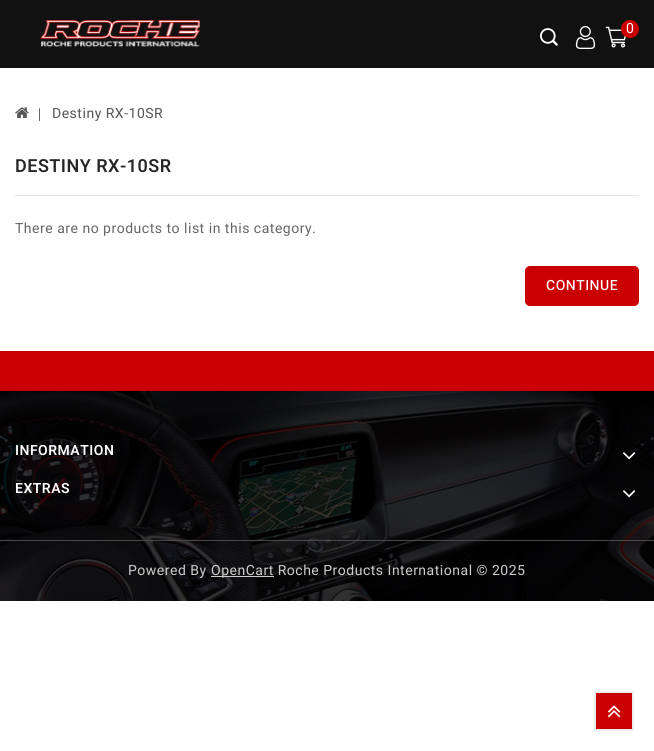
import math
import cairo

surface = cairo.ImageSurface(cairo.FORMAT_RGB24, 654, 751)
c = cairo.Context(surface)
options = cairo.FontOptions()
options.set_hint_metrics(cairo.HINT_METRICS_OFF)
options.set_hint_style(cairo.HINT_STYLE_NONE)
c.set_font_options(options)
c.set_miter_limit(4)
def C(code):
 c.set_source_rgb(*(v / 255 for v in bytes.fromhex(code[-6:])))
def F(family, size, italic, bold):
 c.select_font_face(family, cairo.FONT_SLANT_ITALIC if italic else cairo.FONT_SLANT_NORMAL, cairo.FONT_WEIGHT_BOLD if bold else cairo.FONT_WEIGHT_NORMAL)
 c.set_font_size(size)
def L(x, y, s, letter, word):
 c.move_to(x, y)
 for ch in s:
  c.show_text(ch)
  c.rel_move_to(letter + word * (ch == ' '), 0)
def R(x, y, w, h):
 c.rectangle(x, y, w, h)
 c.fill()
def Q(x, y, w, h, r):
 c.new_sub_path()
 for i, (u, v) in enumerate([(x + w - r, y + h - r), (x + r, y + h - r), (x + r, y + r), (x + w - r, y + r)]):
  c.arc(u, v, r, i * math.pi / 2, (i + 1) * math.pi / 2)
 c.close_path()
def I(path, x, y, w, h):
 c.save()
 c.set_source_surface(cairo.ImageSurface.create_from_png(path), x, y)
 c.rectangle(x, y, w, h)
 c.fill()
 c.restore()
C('ffffff')
c.paint()
C('111111')
R(0,0,654,68)
I('1.png',40,20,160,28)
I('2.png',540,28,18,18)
I('3.png',575,26,21,23)
I('4.png',605,26,21,22)
C('ca0000')
c.arc(630,29,9,0,2 * math.pi)
c.fill()
F('Heebo',14,0,0)
C('ffffff')
L(626,33,'0',.5,0)
I('5.png',15,107,14,11)
F('Liberation Serif',14,0,0)
C('262626')
L(38,118,'|',.5,0)
F('Heebo',14,0,0)
C('555555')
L(52,118,'Destiny RX-10SR',.5,0)
C('e5e5e5')
R(15,195,624,1)
F('Heebo SemiBold',18,0,0)
C('262626')
L(15,172,'DESTINY RX-10SR',.5,0)
F('Heebo',14,0,0)
C('666666')
L(15,233,'There are no products to list in this category.',.5,0)
C('ca0000')
Q(525.5,266.5,113,39,4.5)
c.fill_preserve()
c.set_line_width(1)
c.stroke()
F('Heebo Medium',14,0,0)
C('ffffff')
L(546,290,'CONTINUE',.5,0)
I('6.png',0,391,654,210)
C('ca0000')
R(0,351,654,40)
F('Heebo SemiBold',14,0,0)
C('ffffff')
L(15,455,'INFORMATION',.5,0)
I('7.png',623,452,13,8)
L(15,493,'EXTRAS',.5,0)
I('8.png',623,490,13,8)
C('494949')
R(0,540,654,1)
F('Heebo',14,0,0)
C('cccccc')
L(128,575,'Powered By',.5,0)
R(211,576,63,1)
L(211,575,'OpenCart Roche Products International © 2025',.5,0)
C('ca0000')
c.rectangle(595,692,38,38)
c.fill_preserve()
C('ededed')
c.set_line_width(2)
c.stroke()
I('9.png',608,705,13,13)
surface.write_to_png('o.png')
